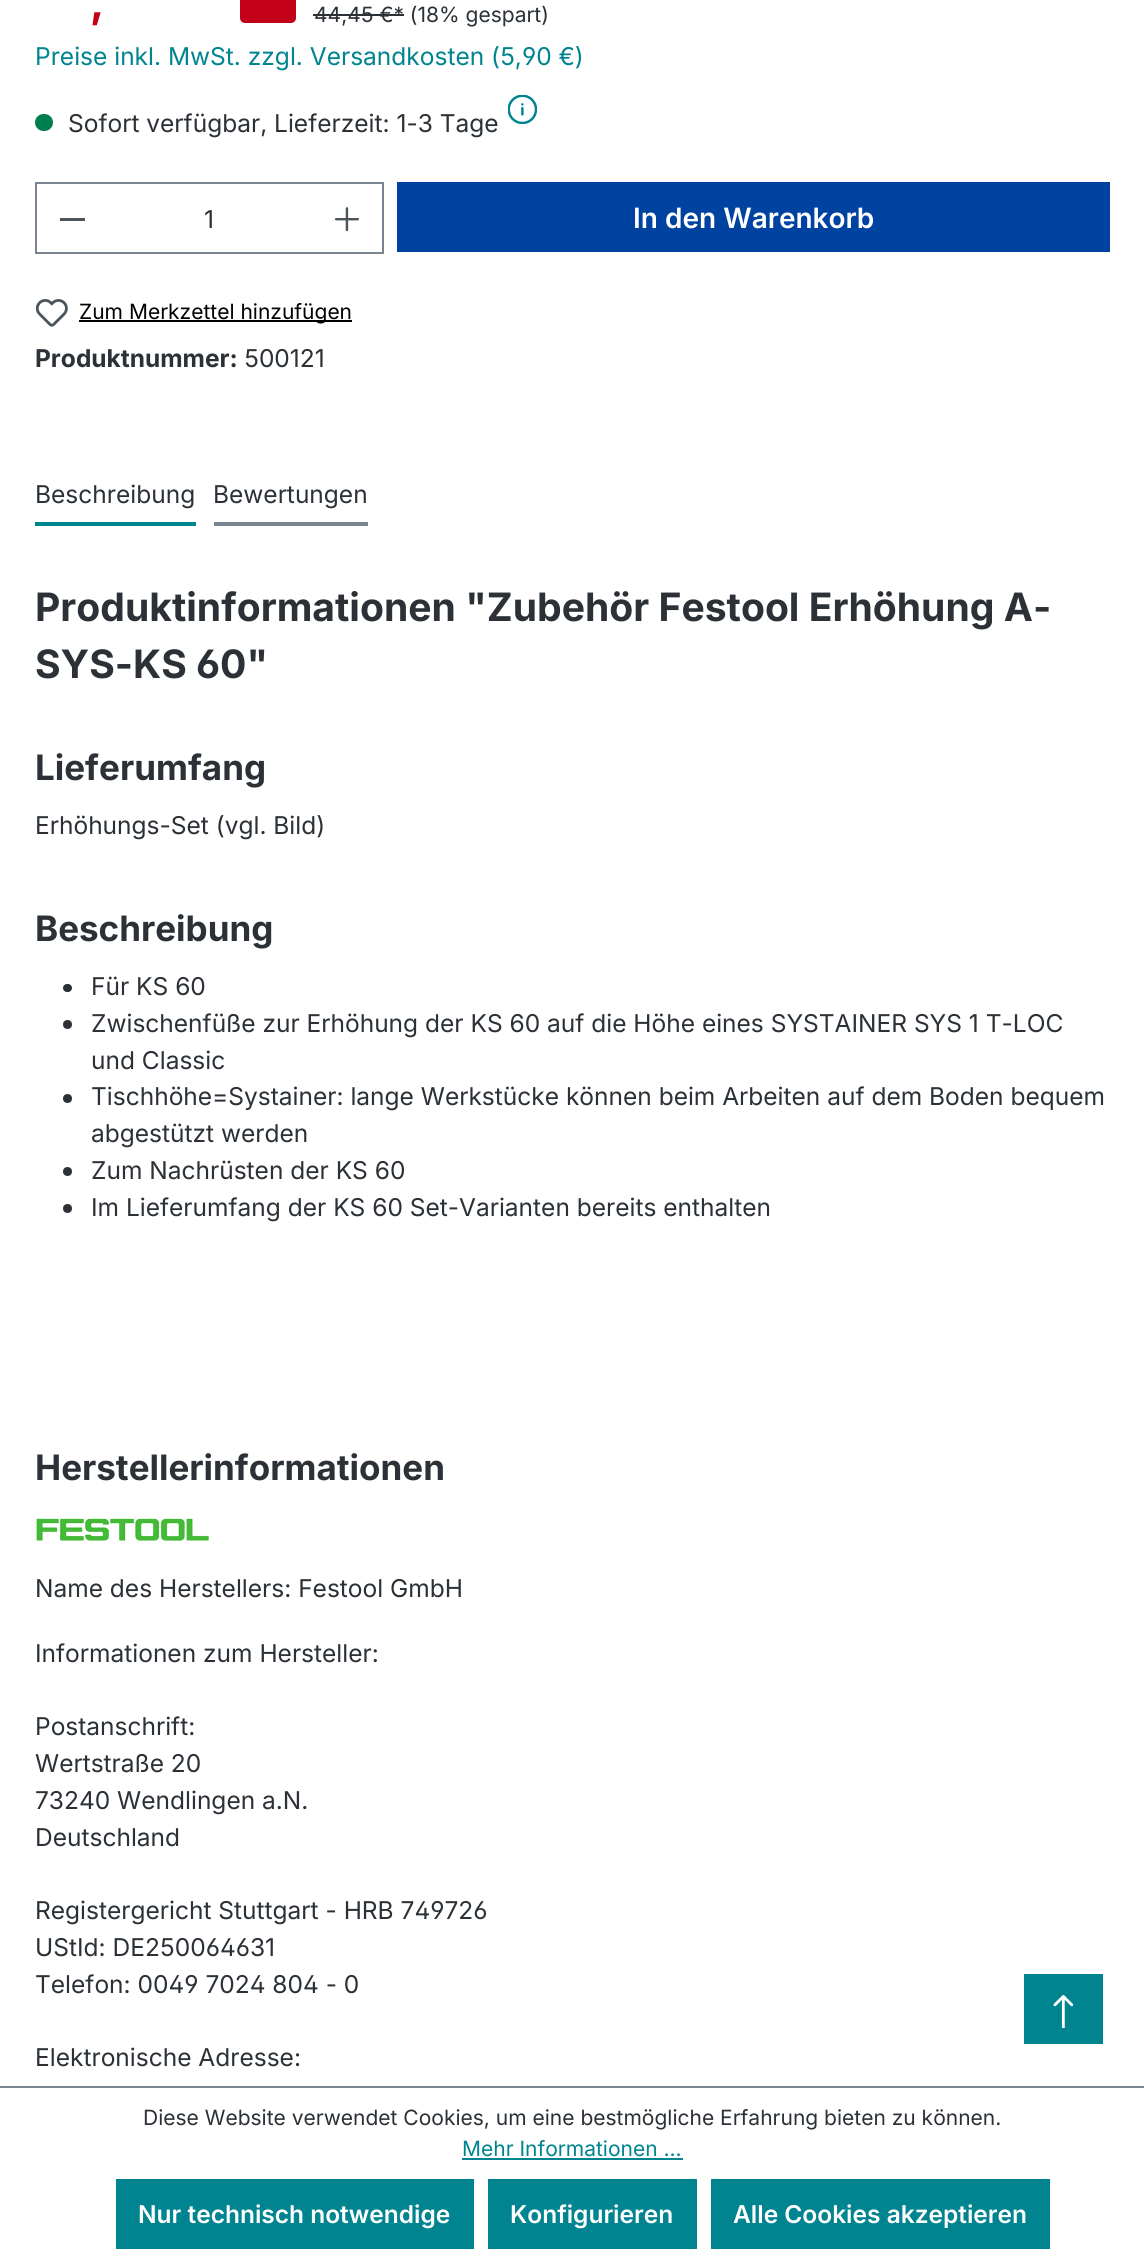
import math
import cairo

surface = cairo.ImageSurface(cairo.FORMAT_RGB24, 1144, 2262)
c = cairo.Context(surface)
options = cairo.FontOptions()
options.set_hint_metrics(cairo.HINT_METRICS_OFF)
options.set_hint_style(cairo.HINT_STYLE_NONE)
c.set_font_options(options)
c.set_miter_limit(4)
def C(code):
 c.set_source_rgb(*(v / 255 for v in bytes.fromhex(code[-6:])))
def F(family, size, italic, bold):
 c.select_font_face(family, cairo.FONT_SLANT_ITALIC if italic else cairo.FONT_SLANT_NORMAL, cairo.FONT_WEIGHT_BOLD if bold else cairo.FONT_WEIGHT_NORMAL)
 c.set_font_size(size)
def T(x, y, s):
 c.move_to(x, y)
 c.show_text(s)
def R(x, y, w, h):
 c.rectangle(x, y, w, h)
 c.fill()
def Q(x, y, w, h, r):
 c.new_sub_path()
 for i, (u, v) in enumerate([(x + w - r, y + h - r), (x + r, y + h - r), (x + r, y + r), (x + w - r, y + r)]):
  c.arc(u, v, r, i * math.pi / 2, (i + 1) * math.pi / 2)
 c.close_path()
def I(path, x, y, w, h):
 c.save()
 c.set_source_surface(cairo.ImageSurface.create_from_png(path), x, y)
 c.rectangle(x, y, w, h)
 c.fill()
 c.restore()
C('ffffff')
c.paint()
F('Inter',43,0,1)
C('c20017')
T(90,17,',')
Q(240,-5,56,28,5)
c.fill()
F('Inter',21,0,0)
C('2b3136')
T(314,22,'44,45 €* (18% gespart)')
R(313,14,91,2)
F('Inter',24.5,0,0)
C('008490')
T(35,65,'Preise inkl. MwSt. zzgl. Versandkosten')
F('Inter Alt',24.5,0,0)
T(491,65,'(5,90 €)')
C('007e4e')
Q(35,114,18,17,8.5)
c.fill()
F('Inter',24.5,0,0)
C('2b3136')
T(68,132,'Sofort verfügbar, Lieferzeit: 1-3 Tage')
I('1.png',508,95,29,29)
C('798490')
R(35,182,348,2)
R(35,252,278,2)
R(35,182,2,72)
C('4a545b')
R(60,218,25,3)
C('2b3136')
T(204,228,'1')
C('798490')
R(382,182,2,72)
R(312,252,71,2)
I('2.png',334,207,25,25)
C('0042a0')
R(397,182,713,70)
F('Inter SemiBold',28,0,0)
C('ffffff')
T(633,228,'In den Warenkorb')
I('3.png',35,299,33,28)
C('000000')
R(79,320,273,2)
F('Inter',21,0,0)
T(79,319,'Zum Merkzettel hinzufügen')
F('Inter',24.5,0,1)
C('2b3136')
T(35,367,'Produktnummer:')
F('Inter',24.5,0,0)
T(244,367,'500121')
C('008490')
R(35,522,161,4)
C('2b3136')
T(35,503,'Beschreibung')
C('798490')
R(214,522,154,4)
C('2b3136')
T(213,503,'Bewertungen')
F('Inter',39.1,0,1)
T(35,621,'Produktinformationen "Zubehör Festool Erhöhung A-')
F('Inter Alt',39.1,0,1)
T(35,678,'SYS-KS 60"')
F('Inter',35,0,1)
T(35,780,'Lieferumfang')
F('Inter',24.5,0,0)
T(35,834,'Erhöhungs-Set (vgl. Bild)')
F('Inter',35,0,1)
T(35,941,'Beschreibung')
Q(63,984,9,8,4)
c.fill()
F('Inter',24.5,0,0)
T(91,995,'Für KS 60')
c.new_path()
c.arc(67.5,1024.5,4.5,0,2 * math.pi)
c.fill()
T(91,1032,'Zwischenfüße zur Erhöhung der KS 60 auf die Höhe eines SYSTAINER SYS 1 T-LOC')
T(91,1069,'und Classic')
c.new_path()
c.arc(67.5,1098.5,4.5,0,2 * math.pi)
c.fill()
T(91,1105,'Tischhöhe=Systainer: lange Werkstücke können beim Arbeiten auf dem Boden bequem')
T(91,1142,'abgestützt werden')
c.new_path()
c.arc(67.5,1171.5,4.5,0,2 * math.pi)
c.fill()
T(91,1179,'Zum Nachrüsten der KS 60')
c.new_path()
c.arc(67.5,1208.5,4.5,0,2 * math.pi)
c.fill()
T(91,1216,'Im Lieferumfang der KS 60 Set-Varianten bereits enthalten')
F('Inter',35,0,1)
T(35,1480,'Herstellerinformationen')
I('4.png',36,1518,173,23)
F('Inter',24.5,0,0)
T(35,1597,'Name des Herstellers: Festool GmbH')
T(35,1662,'Informationen zum Hersteller:')
T(35,1735,'Postanschrift:')
T(35,1772,'Wertstraße 20')
T(35,1809,'73240 Wendlingen a.N.')
T(35,1846,'Deutschland')
F('Inter Alt',24.5,0,0)
T(35,1919,'Registergericht Stuttgart - HRB 749726')
T(35,1956,'UStId: DE250064631')
T(35,1993,'Telefon: 0049 7024 804 - 0')
F('Inter',24.5,0,0)
T(35,2066,'Elektronische Adresse:')
C('008490')
R(1024,1974,79,70)
I('5.png',1053,1995,21,33)
C('798490')
R(0,2086,1144,2)
F('Inter',21,0,0)
C('2b3136')
T(143,2125,'Diese Website verwendet Cookies, um eine bestmögliche Erfahrung bieten zu können.')
C('008490')
T(462,2156,'Mehr Informationen ...')
R(462,2158,221,2)
R(116,2179,358,70)
F('Inter SemiBold',24.5,0,0)
C('ffffff')
T(138,2223,'Nur technisch notwendige')
C('008490')
R(488,2179,209,70)
C('ffffff')
T(510,2223,'Konfigurieren')
C('008490')
R(711,2179,339,70)
C('ffffff')
T(733,2223,'Alle Cookies akzeptieren')
surface.write_to_png('o.png')
